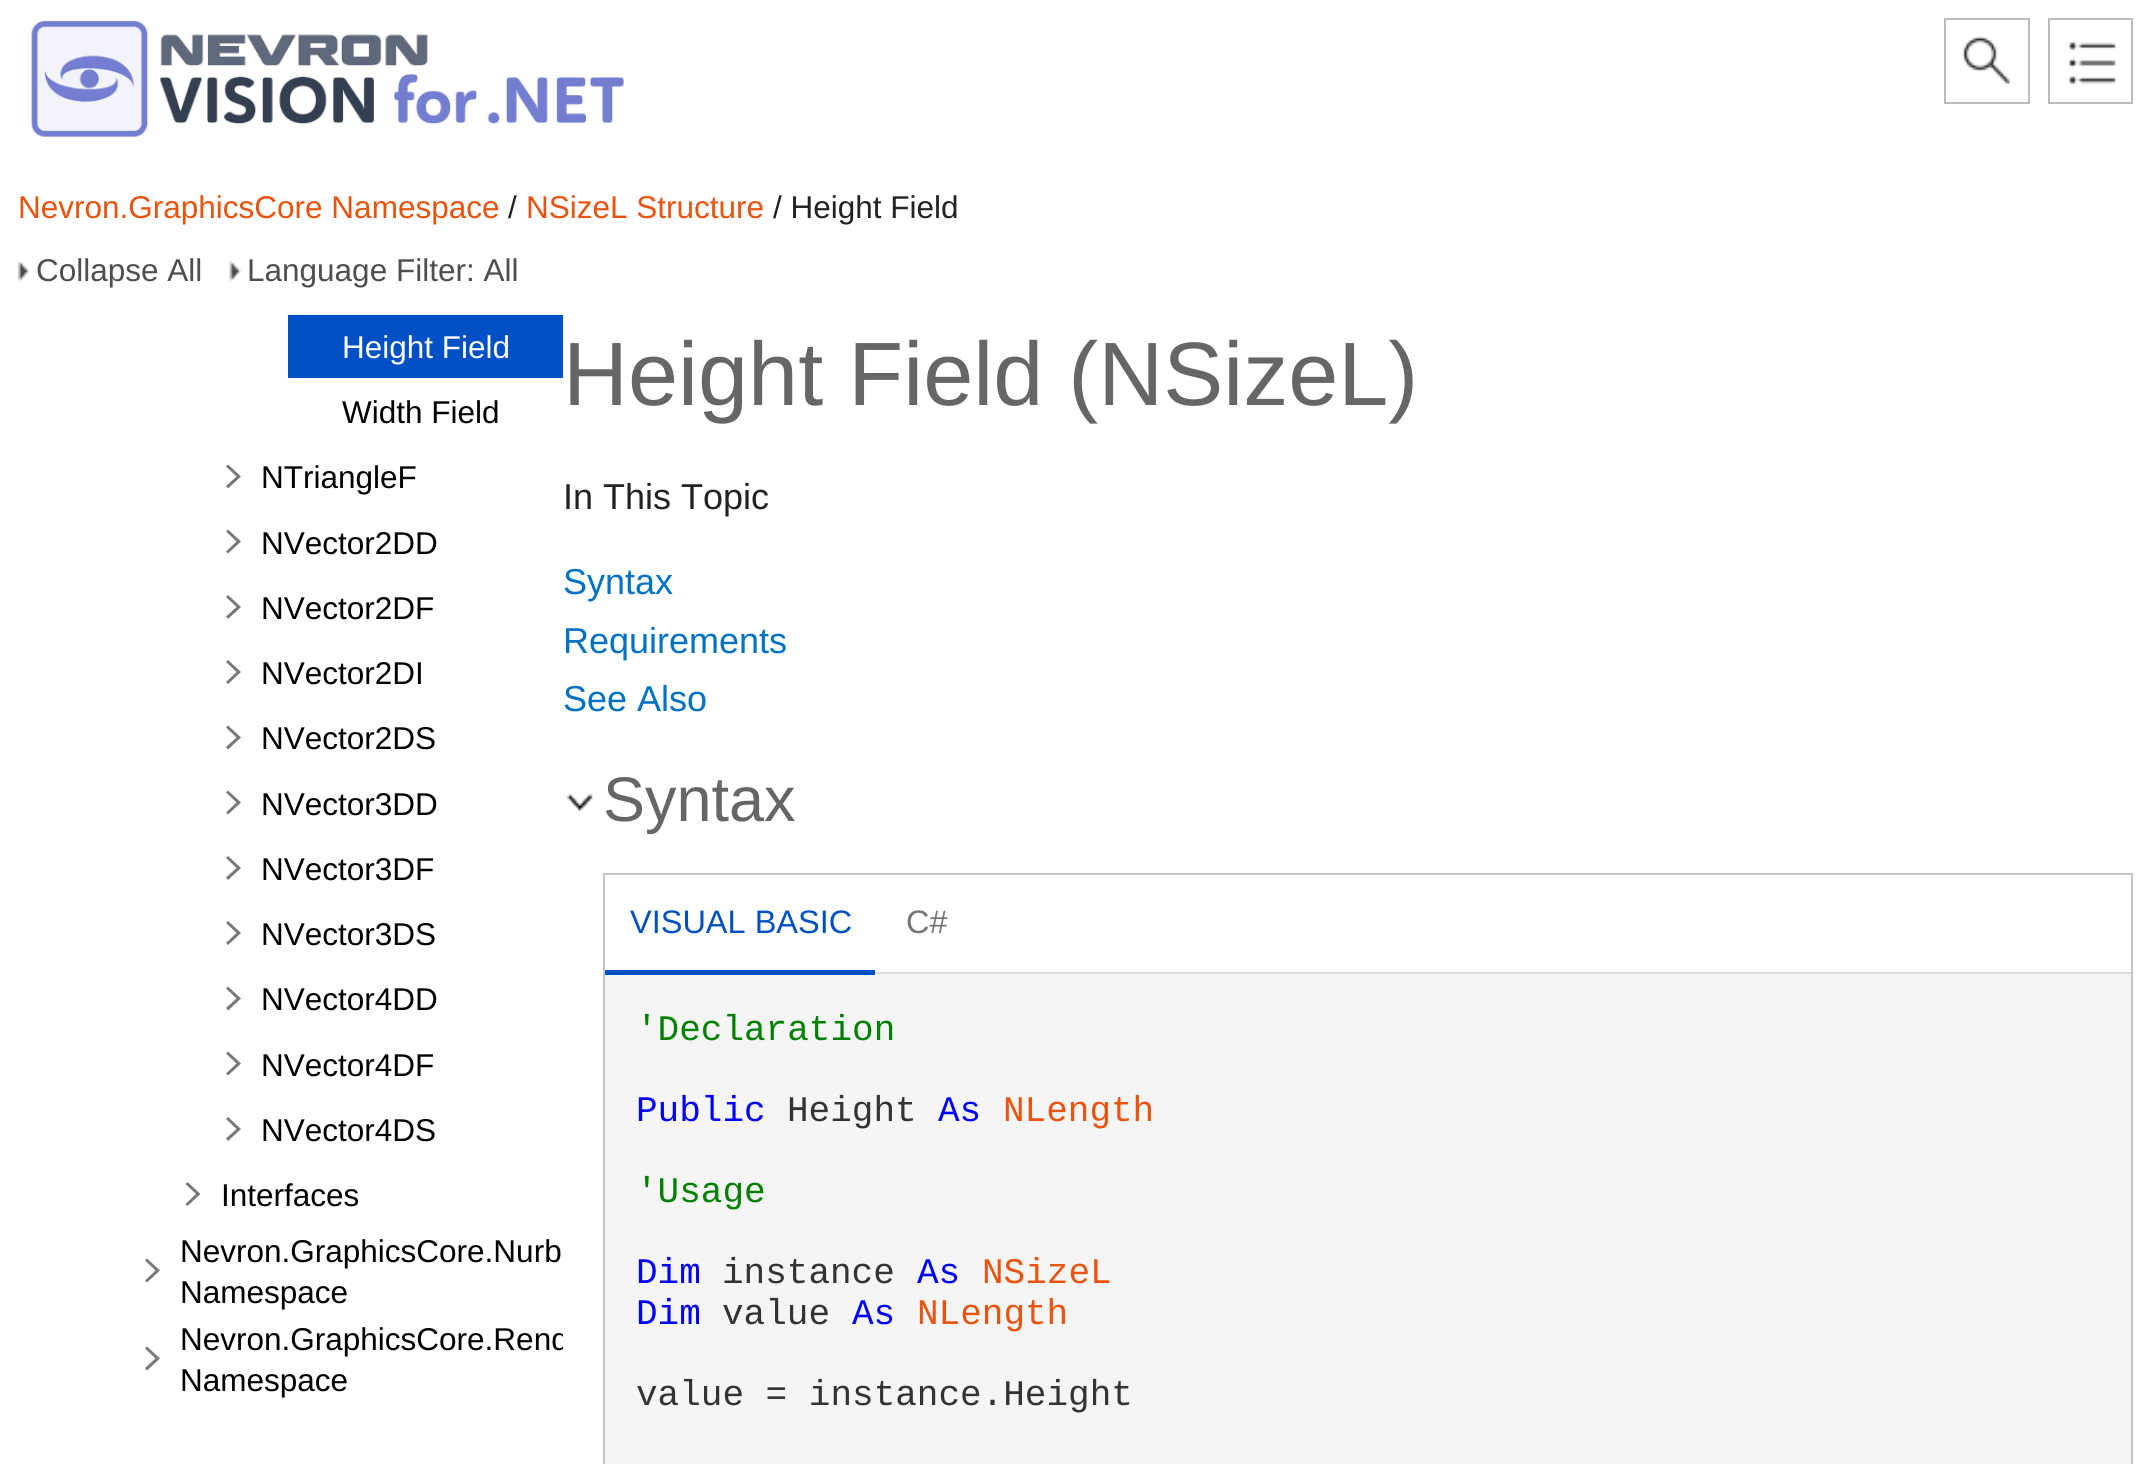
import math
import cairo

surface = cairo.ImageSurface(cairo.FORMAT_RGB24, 2151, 1464)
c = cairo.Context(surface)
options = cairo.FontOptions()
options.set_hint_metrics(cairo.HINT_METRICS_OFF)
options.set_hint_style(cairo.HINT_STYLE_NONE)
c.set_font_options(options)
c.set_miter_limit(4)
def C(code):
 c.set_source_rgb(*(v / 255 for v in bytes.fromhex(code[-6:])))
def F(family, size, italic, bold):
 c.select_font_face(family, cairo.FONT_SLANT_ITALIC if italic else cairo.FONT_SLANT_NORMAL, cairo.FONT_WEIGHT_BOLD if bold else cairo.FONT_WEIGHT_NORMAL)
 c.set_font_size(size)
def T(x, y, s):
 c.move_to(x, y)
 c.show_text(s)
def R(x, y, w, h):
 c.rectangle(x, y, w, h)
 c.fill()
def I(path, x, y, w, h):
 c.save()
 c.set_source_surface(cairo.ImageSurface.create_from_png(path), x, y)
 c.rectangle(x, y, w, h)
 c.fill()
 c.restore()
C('ffffff')
c.paint()
I('1.png',31,20,593,117)
c.rectangle(1945,19,84,84)
C('bbbbbb')
c.stroke()
I('2.png',1962,36,48,48)
I('3.png',2068,42,48,42)
c.rectangle(2049,19,83,84)
c.stroke()
F('Liberation Sans',31.5,0,0)
C('ea530e')
T(18,218,'Nevron.GraphicsCore Namespace')
C('222222')
T(508,218,'/')
C('ea530e')
T(526,218,'NSizeL Structure')
C('222222')
T(773,218,'/ Height Field')
I('4.png',18,260,12,22)
C('4e4e4e')
T(36,281,'Collapse All')
I('5.png',229,260,13,22)
T(247,281,'Language Filter: All')
C('0050c5')
R(288,315,275,63)
C('ffffff')
T(342,358,'Height Field')
C('000000')
T(342,423,'Width Field')
C('787878')
c.new_path()
c.move_to(228,464.5)
c.line_to(226,466.5)
c.line_to(236.5,476.5)
c.line_to(226,486)
c.line_to(228,488.5)
c.line_to(241,476.5)
c.close_path()
c.fill()
C('000000')
T(261,488,'NTriangleF')
C('787878')
c.new_path()
c.move_to(228,529.5)
c.line_to(226,531.5)
c.line_to(236.5,541.5)
c.line_to(226,551.5)
c.line_to(228,553.5)
c.line_to(241,541.5)
c.close_path()
c.fill()
C('000000')
T(261,554,'NVector2DD')
C('787878')
c.new_path()
c.move_to(228,595)
c.line_to(226,597)
c.line_to(236.5,607)
c.line_to(226,616.5)
c.line_to(228,619)
c.line_to(241,607)
c.close_path()
c.fill()
C('000000')
T(261,619,'NVector2DF')
C('787878')
c.new_path()
c.move_to(228,660)
c.line_to(226,662)
c.line_to(236.5,672)
c.line_to(226,682)
c.line_to(228,684)
c.line_to(241,672)
c.close_path()
c.fill()
C('000000')
T(261,684,'NVector2DI')
C('787878')
c.new_path()
c.move_to(228,725.5)
c.line_to(226,727.5)
c.line_to(236.5,737.5)
c.line_to(226,747)
c.line_to(228,749.5)
c.line_to(241,737.5)
c.close_path()
c.fill()
C('000000')
T(261,749,'NVector2DS')
C('787878')
c.new_path()
c.move_to(228,790.5)
c.line_to(226,792.5)
c.line_to(236.5,802.5)
c.line_to(226,812.5)
c.line_to(228,814.5)
c.line_to(241,802.5)
c.close_path()
c.fill()
C('000000')
T(261,815,'NVector3DD')
C('787878')
c.new_path()
c.move_to(228,856)
c.line_to(226,858)
c.line_to(236.5,868)
c.line_to(226,877.5)
c.line_to(228,880)
c.line_to(241,868)
c.close_path()
c.fill()
C('000000')
T(261,880,'NVector3DF')
C('787878')
c.new_path()
c.move_to(228,921)
c.line_to(226,923)
c.line_to(236.5,933)
c.line_to(226,943)
c.line_to(228,945)
c.line_to(241,933)
c.close_path()
c.fill()
C('000000')
T(261,945,'NVector3DS')
C('787878')
c.new_path()
c.move_to(228,986.5)
c.line_to(226,988.5)
c.line_to(236.5,998.5)
c.line_to(226,1008)
c.line_to(228,1010.5)
c.line_to(241,998.5)
c.close_path()
c.fill()
C('000000')
T(261,1010,'NVector4DD')
C('787878')
c.new_path()
c.move_to(228,1051.5)
c.line_to(226,1053.5)
c.line_to(236.5,1063.5)
c.line_to(226,1073.5)
c.line_to(228,1075.5)
c.line_to(241,1063.5)
c.close_path()
c.fill()
C('000000')
T(261,1076,'NVector4DF')
C('787878')
c.new_path()
c.move_to(228,1117)
c.line_to(226,1119)
c.line_to(236.5,1129)
c.line_to(226,1138.5)
c.line_to(228,1141)
c.line_to(241,1129)
c.close_path()
c.fill()
C('000000')
T(261,1141,'NVector4DS')
C('787878')
c.new_path()
c.move_to(187.5,1182)
c.line_to(185.5,1184)
c.line_to(196,1194)
c.line_to(185.5,1204)
c.line_to(187.5,1206)
c.line_to(200.5,1194)
c.close_path()
c.fill()
C('000000')
T(221,1206,'Interfaces')
C('787878')
c.new_path()
c.move_to(147,1258.5)
c.line_to(145,1260.5)
c.line_to(155.5,1270.5)
c.line_to(145,1280.5)
c.line_to(147,1282.5)
c.line_to(160,1270.5)
c.close_path()
c.fill()
C('000000')
T(180,1262,'Nevron.GraphicsCore.Nurb')
T(180,1303,'Namespace')
C('787878')
c.new_path()
c.move_to(147,1346.5)
c.line_to(145,1348.5)
c.line_to(155.5,1358.5)
c.line_to(145,1368)
c.line_to(147,1370.5)
c.line_to(160,1358.5)
c.close_path()
c.fill()
c.save()
c.rectangle(18,315,545,1087)
c.clip()
C('000000')
T(180,1350,'Nevron.GraphicsCore.Rend')
c.restore()
C('000000')
T(180,1391,'Namespace')
F('Liberation Sans',90,0,0)
C('666666')
T(563,405,'Height Field (NSizeL)')
F('Liberation Sans',36,0,0)
C('222222')
T(563,509,'In This Topic')
C('0072c6')
T(563,594,'Syntax')
T(563,653,'Requirements')
T(563,711,'See Also')
I('6.png',566,793,27,18)
F('Liberation Sans',63,0,0)
C('666666')
T(603,821,'Syntax')
c.rectangle(604,874,1528,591)
C('c5c5c5')
c.stroke()
C('dcdcdc')
R(875,972,1256,2)
C('f5f5f5')
R(605,974,1526,490)
C('0050c5')
R(605,970,270,5)
F('Liberation Sans',32.5,0,0)
T(630,933,'VISUAL BASIC')
C('757575')
T(906,933,'C#')
F('Liberation Mono',36,0,0)
C('008000')
T(636,1040,'\'Declaration')
C('0000ff')
T(636,1121,'Public')
C('333333')
T(787,1121,'Height')
C('0000ff')
T(938,1121,'As')
C('ea530e')
T(1003,1121,'NLength')
C('008000')
T(636,1202,'\'Usage')
C('0000ff')
T(636,1283,'Dim')
C('333333')
T(722,1283,'instance')
C('0000ff')
T(917,1283,'As')
C('ea530e')
T(982,1283,'NSizeL')
C('0000ff')
T(636,1324,'Dim')
C('333333')
T(722,1324,'value')
C('0000ff')
T(852,1324,'As')
C('ea530e')
T(917,1324,'NLength')
C('333333')
T(636,1405,'value = instance.Height')
surface.write_to_png('o.png')
